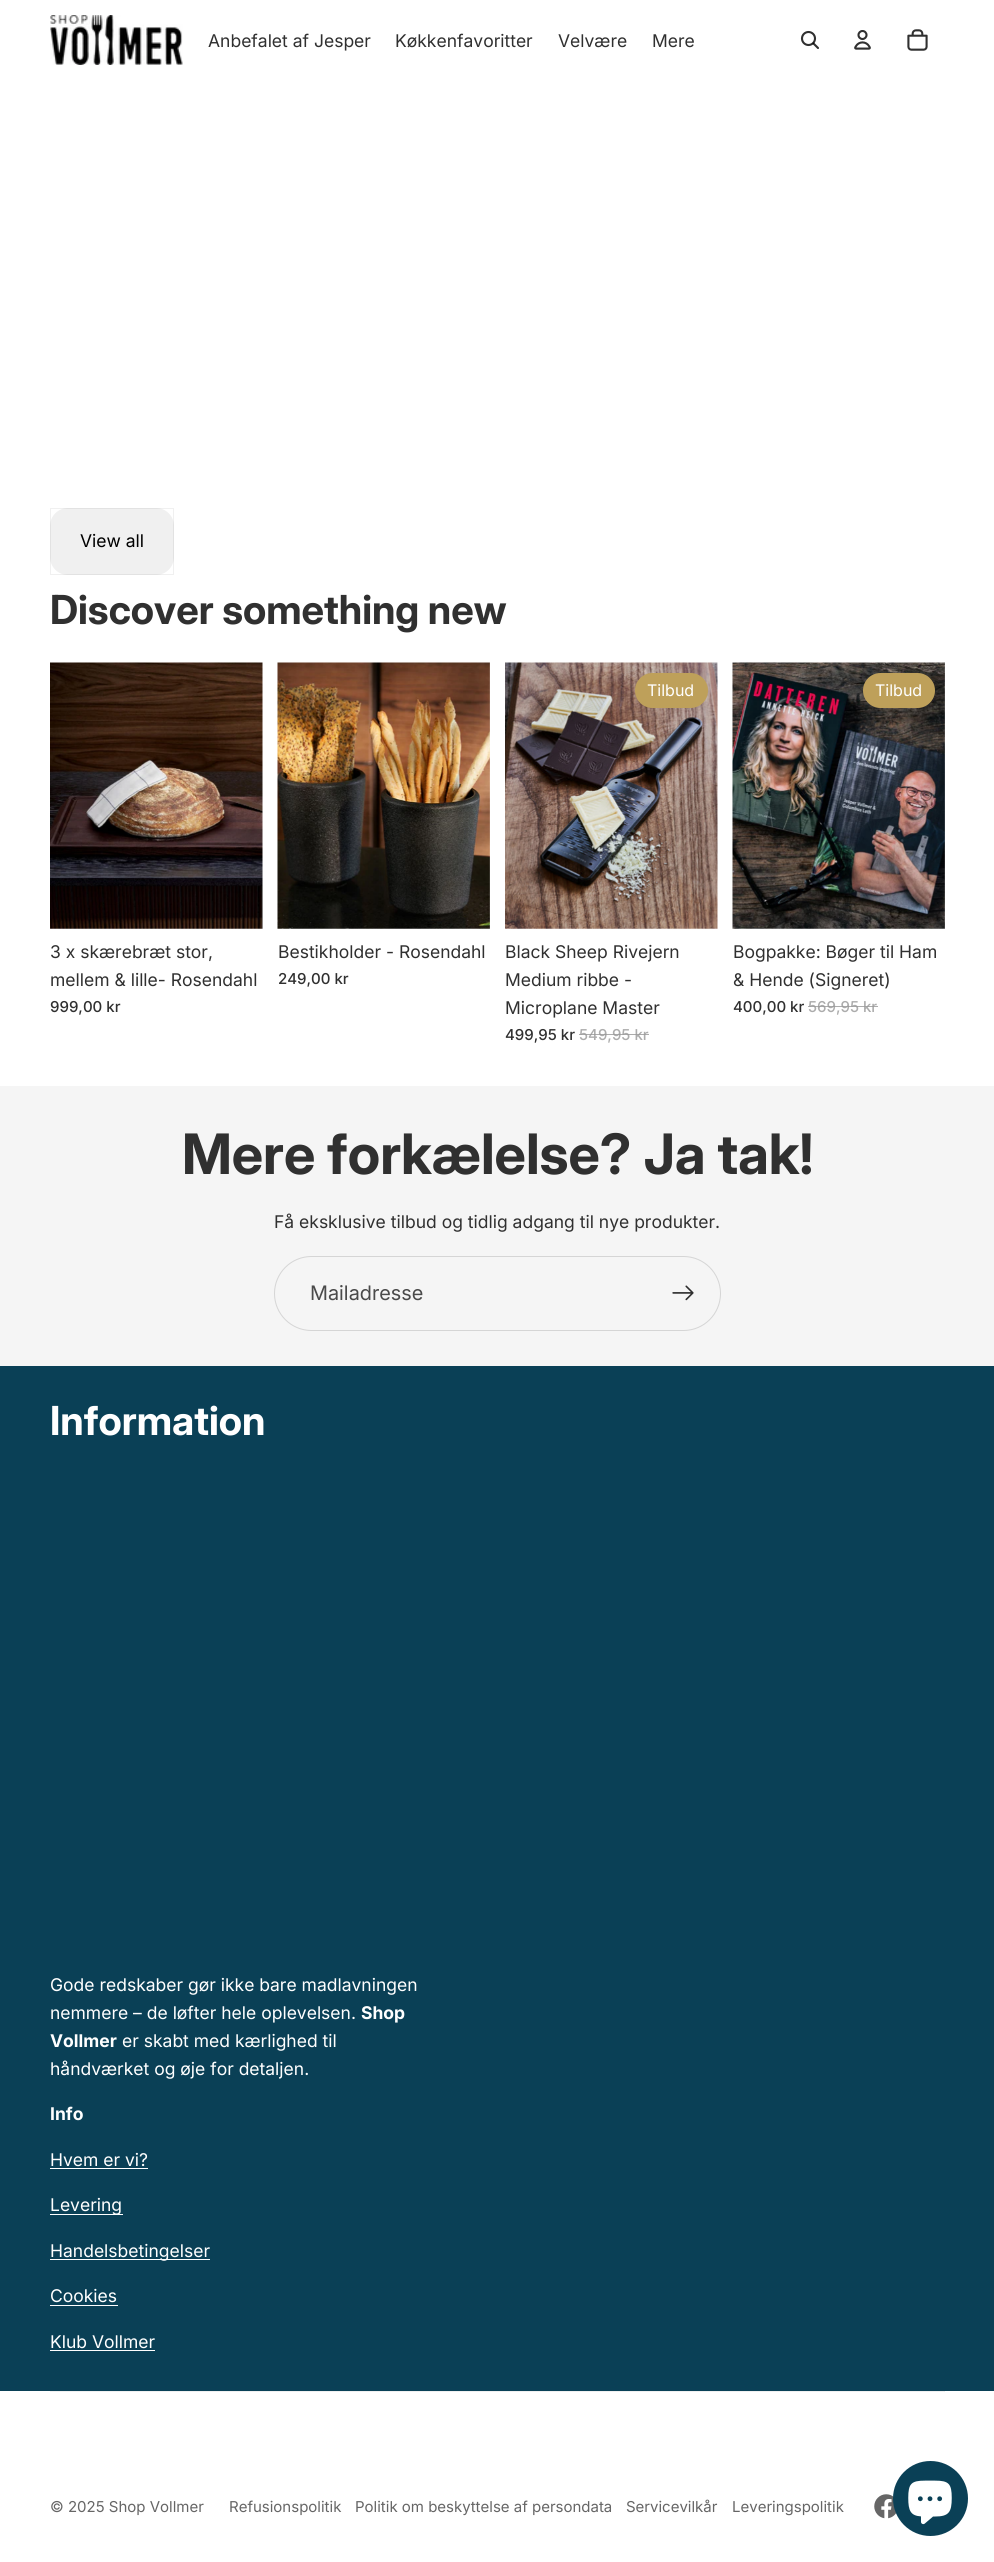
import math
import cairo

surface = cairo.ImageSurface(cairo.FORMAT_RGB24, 994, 2562)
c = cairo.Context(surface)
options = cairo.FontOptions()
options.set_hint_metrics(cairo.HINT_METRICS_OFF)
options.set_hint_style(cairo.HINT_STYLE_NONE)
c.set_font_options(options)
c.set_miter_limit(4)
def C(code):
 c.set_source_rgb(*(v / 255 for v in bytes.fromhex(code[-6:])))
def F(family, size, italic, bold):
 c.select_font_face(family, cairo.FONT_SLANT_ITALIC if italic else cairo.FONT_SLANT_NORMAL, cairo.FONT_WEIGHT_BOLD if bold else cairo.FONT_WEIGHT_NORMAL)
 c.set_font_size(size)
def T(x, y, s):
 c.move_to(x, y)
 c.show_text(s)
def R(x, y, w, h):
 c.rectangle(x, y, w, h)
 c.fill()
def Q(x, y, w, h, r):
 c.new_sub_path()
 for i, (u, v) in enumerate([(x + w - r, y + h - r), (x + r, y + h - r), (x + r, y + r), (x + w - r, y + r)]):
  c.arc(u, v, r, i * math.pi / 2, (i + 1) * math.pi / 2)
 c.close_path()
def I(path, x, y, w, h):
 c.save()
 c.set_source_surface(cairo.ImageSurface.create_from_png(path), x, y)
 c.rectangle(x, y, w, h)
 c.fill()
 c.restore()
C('ffffff')
c.paint()
I('1.png',50,15,133,50)
F('Inter',17.5,0,0)
C('303030')
T(208,47,'Anbefalet af Jesper')
T(395,47,'Køkkenfavoritter')
T(558,47,'Velvære')
T(652,47,'Mere')
c.new_path()
c.arc(808.5,38.5,6.5,0,2 * math.pi)
c.set_line_width(2.1)
c.stroke()
c.new_path()
c.move_to(813.5,43.5)
c.line_to(818,48)
c.set_source_rgba(0,0,0,0.81)
c.set_line_cap(cairo.LINE_CAP_ROUND)
c.set_line_join(cairo.LINE_JOIN_ROUND)
c.stroke()
I('2.png',854,30,17,20)
I('3.png',907,29,21,22)
C('f0f0f0')
Q(50,508,124,67,18)
c.fill()
c.rectangle(50.5,508.5,123,66)
c.set_source_rgba(0,0,0,0.06)
c.set_line_width(1)
c.set_line_cap(cairo.LINE_CAP_BUTT)
c.set_line_join(cairo.LINE_JOIN_MITER)
c.stroke()
C('000000')
T(80,547,'View all')
F('Inter',40,0,1)
C('303030')
T(50,624,'Discover something new')
I('4.png',50,662,213,267)
F('Inter',17.5,0,0)
T(50,958,'3 x skærebræt stor,')
T(50,986,'mellem & lille- Rosendahl')
F('Inter Medium',15,0,0)
T(50,1012,'999,00 kr')
I('5.png',277,662,213,267)
F('Inter',17.5,0,0)
T(278,958,'Bestikholder - Rosendahl')
F('Inter Medium',15,0,0)
T(278,984,'249,00 kr')
I('6.png',505,662,213,267)
C('bea05a')
Q(635,673,73,35,17.5)
c.fill()
F('Inter',16,0,0)
C('ffffff')
T(647,696,'Tilbud')
F('Inter',17.5,0,0)
C('303030')
T(505,958,'Black Sheep Rivejern')
T(505,986,'Medium ribbe -')
T(505,1014,'Microplane Master')
F('Inter Medium',15,0,0)
T(505,1040,'499,95 kr')
C('acacac')
T(579,1040,'549,95 kr')
c.set_source_rgba(0.6,0.6,0.6,0.81)
R(579,1034,70,1)
I('7.png',732,662,213,267)
C('bea05a')
Q(863,673,72,35,17.5)
c.fill()
F('Inter',16,0,0)
C('ffffff')
T(875,696,'Tilbud')
F('Inter',17.5,0,0)
C('303030')
T(733,958,'Bogpakke: Bøger til Ham')
T(733,986,'& Hende (Signeret)')
F('Inter Medium',15,0,0)
T(733,1012,'400,00 kr')
C('acacac')
T(808,1012,'569,95 kr')
c.set_source_rgba(0.6,0.6,0.6,0.81)
R(808,1006,70,1)
C('f5f5f5')
R(0,1086,994,280)
F('Inter',55.75,0,1)
C('303030')
T(182,1174,'Mere forkælelse? Ja tak!')
F('Inter',17.5,0,0)
T(274,1228,'Få eksklusive tilbud og tidlig adgang til nye produkter.')
Q(274.5,1256.5,446,74,37)
C('d5d5d5')
c.stroke()
F('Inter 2',20,0,0)
C('4a4a4a')
T(310,1300,'Mailadresse')
I('8.png',672,1285,22,16)
C('0a4056')
R(0,1366,994,1025)
F('Inter',40,0,1)
C('ffffff')
T(50,1435,'Information')
F('Inter',17.5,0,0)
T(50,1991,'Gode redskaber gør ikke bare madlavningen')
T(50,2019,'nemmere – de løfter hele oplevelsen.')
F('Inter 2',17.5,0,1)
T(361,2019,'Shop')
T(50,2047,'Vollmer')
F('Inter',17.5,0,0)
T(122,2047,'er skabt med kærlighed til')
T(50,2075,'håndværket og øje for detaljen.')
F('Inter 2',17.5,0,1)
T(50,2120,'Info')
F('Inter',17.5,0,0)
T(50,2166,'Hvem er vi?')
R(50,2168,98,1)
R(50,2214,73,1)
T(50,2211,'Levering')
R(50,2259,160,1)
T(50,2257,'Handelsbetingelser')
T(50,2302,'Cookies')
R(50,2305,68,1)
T(50,2348,'Klub Vollmer')
R(50,2350,105,1)
C('f0f0f0')
c.new_path()
c.move_to(945,2391)
c.line_to(945,2392.5)
c.line_to(944,2391)
c.close_path()
c.fill()
c.set_source_rgba(0,0,0,0.06)
c.new_path()
c.move_to(945,2392)
c.line_to(50,2392)
c.line_to(50,2391)
c.line_to(944,2391)
c.close_path()
c.fill()
F('Inter',15,0,0)
C('666666')
T(50,2512,'© 2025 Shop Vollmer')
T(229,2512,'Refusionspolitik')
T(355,2512,'Politik om beskyttelse af persondata')
T(626,2512,'Servicevilkår')
T(732,2512,'Leveringspolitik')
I('9.png',874,2494,22,25)
C('0a4056')
c.arc(930.5,2498.5,37.5,0,2 * math.pi)
c.fill()
I('10.png',908,2480,44,45)
surface.write_to_png('o.png')
